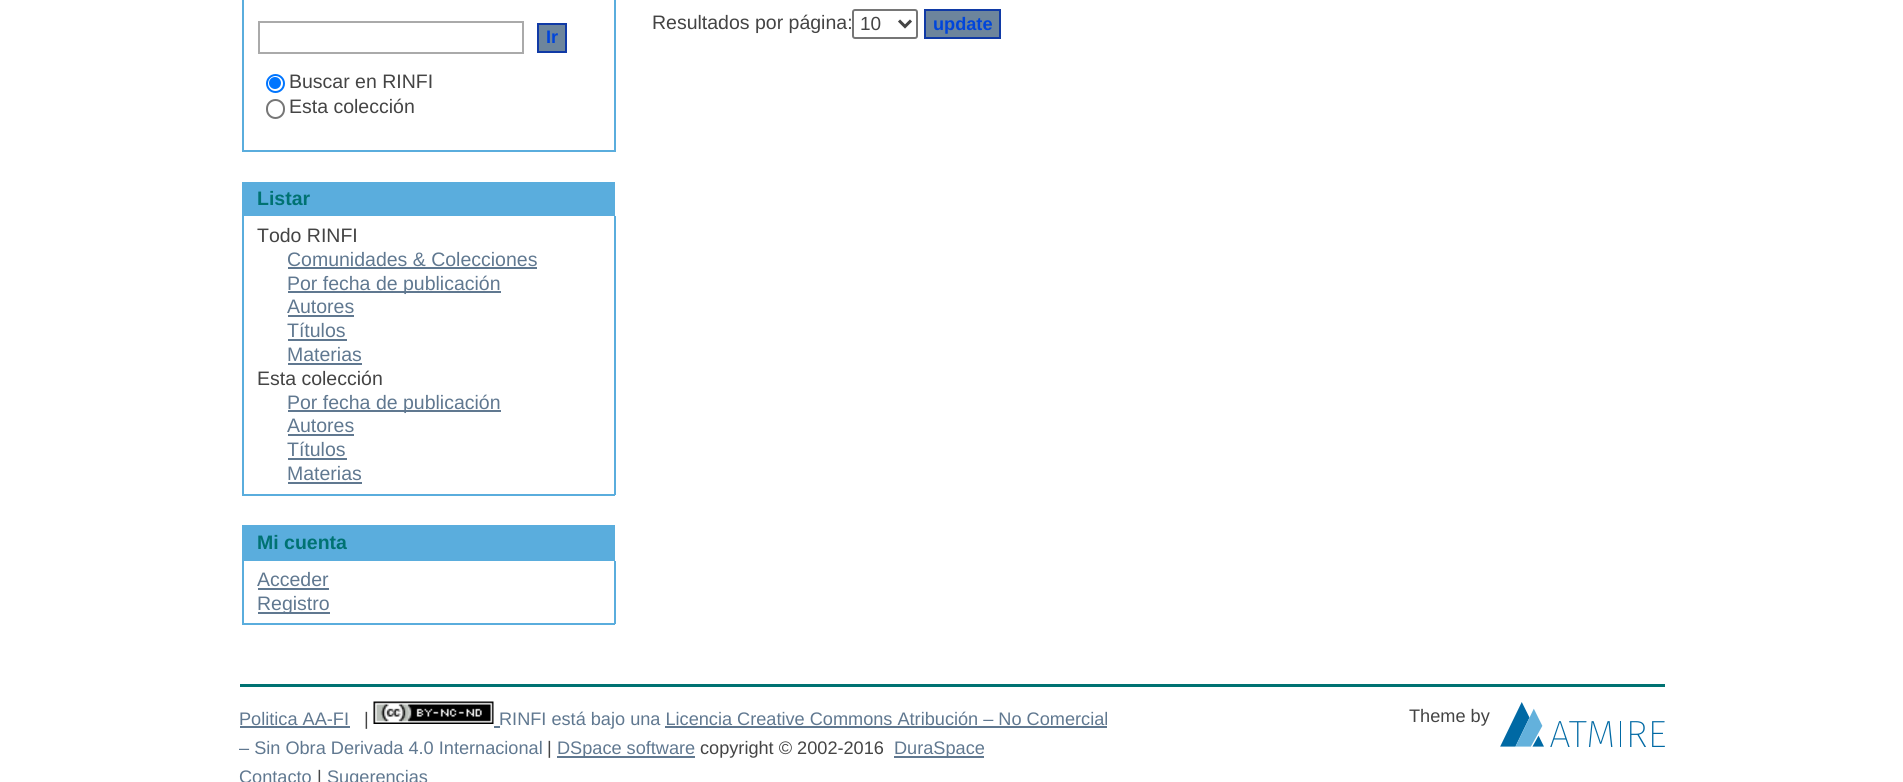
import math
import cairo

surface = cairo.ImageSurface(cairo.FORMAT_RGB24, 1903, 782)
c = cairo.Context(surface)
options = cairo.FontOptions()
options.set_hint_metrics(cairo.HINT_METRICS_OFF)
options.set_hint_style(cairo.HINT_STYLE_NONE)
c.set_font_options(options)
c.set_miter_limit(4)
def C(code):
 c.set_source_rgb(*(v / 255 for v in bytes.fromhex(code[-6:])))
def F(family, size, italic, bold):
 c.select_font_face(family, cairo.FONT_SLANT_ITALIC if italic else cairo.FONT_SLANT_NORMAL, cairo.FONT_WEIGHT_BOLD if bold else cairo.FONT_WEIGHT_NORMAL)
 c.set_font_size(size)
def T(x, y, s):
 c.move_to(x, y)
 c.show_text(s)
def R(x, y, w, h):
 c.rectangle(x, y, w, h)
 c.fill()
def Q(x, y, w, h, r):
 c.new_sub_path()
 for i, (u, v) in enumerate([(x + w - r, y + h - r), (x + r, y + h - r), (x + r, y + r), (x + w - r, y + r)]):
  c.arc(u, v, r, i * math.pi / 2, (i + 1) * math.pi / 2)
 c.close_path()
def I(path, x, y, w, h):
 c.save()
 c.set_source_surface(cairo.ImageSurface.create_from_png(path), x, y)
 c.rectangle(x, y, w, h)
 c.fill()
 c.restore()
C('ffffff')
c.paint()
F('Liberation Sans',19.5,0,0)
C('444444')
T(652,29,'Resultados por página:')
Q(853,10,64,28,2)
C('767676')
c.stroke()
c.new_path()
c.move_to(899,20.5)
c.line_to(905,26.5)
c.line_to(911,20.5)
C('444444')
c.set_line_width(3)
c.stroke()
F('Liberation Sans',19,0,0)
T(860,30,'10')
C('6d859c')
c.rectangle(925,10,75,28)
c.fill_preserve()
C('103aa6')
c.set_line_width(2)
c.stroke()
F('Liberation Sans',18.15,0,1)
C('0045db')
T(933,30,'update')
C('5aaddd')
R(614,0,2,152)
R(242,150,373,2)
R(242,0,2,152)
c.rectangle(259,22,264,31)
C('aaaaaa')
c.stroke()
C('6d859c')
c.rectangle(538,24,28,28)
c.fill_preserve()
C('103aa6')
c.stroke()
C('0045db')
T(546,43,'Ir')
c.new_path()
c.arc(275.5,83.5,8.5,0,2 * math.pi)
C('0075ff')
c.stroke()
c.arc(275,83,6,0,2 * math.pi)
c.fill()
F('Liberation Sans',19.5,0,0)
C('444444')
T(289,88,'Buscar en RINFI')
Q(267,100,17,18,8.5)
C('767676')
c.stroke()
C('444444')
T(289,113,'Esta colección')
C('5aaddd')
R(242,182,373,34)
F('Liberation Sans',19.5,0,1)
C('007272')
T(257,205,'Listar')
C('5aaddd')
R(614,216,2,279)
R(242,494,373,2)
R(242,216,2,279)
F('Liberation Sans',19.5,0,0)
C('444444')
T(257,242,'Todo RINFI')
C('607890')
T(287,266,'Comunidades & Colecciones')
R(288,267,249,2)
R(288,291,213,2)
T(287,290,'Por fecha de publicación')
T(287,313,'Autores')
R(288,315,66,2)
T(287,337,'Títulos')
R(288,339,59,2)
T(287,361,'Materias')
R(288,363,74,2)
C('444444')
T(257,385,'Esta colección')
C('607890')
R(288,410,213,2)
T(287,409,'Por fecha de publicación')
T(287,432,'Autores')
R(288,434,66,2)
T(287,456,'Títulos')
R(288,458,59,2)
T(287,480,'Materias')
R(288,482,74,2)
C('5aaddd')
R(242,525,373,36)
F('Liberation Sans',19.5,0,1)
C('007272')
T(257,549,'Mi cuenta')
C('5aaddd')
R(614,561,2,63)
R(242,623,373,2)
R(242,561,2,63)
F('Liberation Sans',19.5,0,0)
C('607890')
T(257,586,'Acceder')
R(258,588,71,2)
R(258,612,72,2)
T(257,610,'Registro')
C('007272')
R(240,684,1425,3)
F('Liberation Sans',18.15,0,0)
C('607890')
T(239,725,'Politica AA-FI')
R(240,726,110,2)
C('444444')
T(364,725,'|')
I('1.png',373,701,121,23)
C('607890')
R(494,726,6,2)
T(499,725,'RINFI está bajo una Licencia Creative Commons Atribución – No Comercial')
R(665,726,442,2)
T(239,754,'– Sin Obra Derivada 4.0 Internacional')
C('444444')
T(547,754,'|')
C('607890')
R(557,756,138,2)
T(557,754,'DSpace software')
C('444444')
T(700,754,'copyright © 2002-2016')
C('607890')
R(894,756,90,2)
T(894,754,'DuraSpace')
C('444444')
T(1409,722,'Theme by')
I('2.png',1500,702,165,45)
C('607890')
T(239,783,'Contacto')
C('444444')
T(317,783,'|')
C('607890')
T(327,783,'Sugerencias')
surface.write_to_png('o.png')
